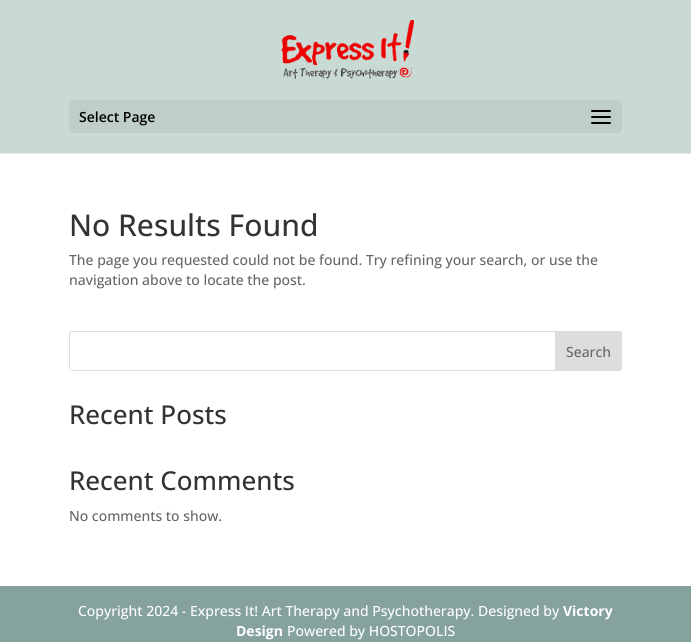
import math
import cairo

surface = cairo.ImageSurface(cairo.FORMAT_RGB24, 691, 642)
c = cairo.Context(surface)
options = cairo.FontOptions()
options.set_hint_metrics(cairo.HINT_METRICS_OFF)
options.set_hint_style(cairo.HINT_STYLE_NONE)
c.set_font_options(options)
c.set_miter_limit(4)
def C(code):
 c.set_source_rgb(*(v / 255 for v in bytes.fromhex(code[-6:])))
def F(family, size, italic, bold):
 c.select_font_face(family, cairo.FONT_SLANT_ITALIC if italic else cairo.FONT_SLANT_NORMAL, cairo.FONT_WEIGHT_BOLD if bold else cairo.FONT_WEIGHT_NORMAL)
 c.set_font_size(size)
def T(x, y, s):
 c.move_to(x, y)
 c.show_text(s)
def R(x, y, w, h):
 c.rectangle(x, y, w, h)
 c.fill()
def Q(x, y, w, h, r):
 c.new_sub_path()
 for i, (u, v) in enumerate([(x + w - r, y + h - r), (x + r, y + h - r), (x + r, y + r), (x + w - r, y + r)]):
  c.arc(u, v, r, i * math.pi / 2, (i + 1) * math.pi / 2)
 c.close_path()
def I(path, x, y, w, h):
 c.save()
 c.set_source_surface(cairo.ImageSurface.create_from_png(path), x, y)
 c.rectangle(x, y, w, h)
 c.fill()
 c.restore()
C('ffffff')
c.paint()
C('e6e6e6')
R(0,153,691,1)
C('c9d9d3')
R(0,0,691,153)
I('1.png',281,20,133,59)
C('bfcec8')
Q(69,100,553,33,5)
c.fill()
F('Open Sans SemiBold',14,0,0)
C('000000')
T(79,122,'Select Page')
I('2.png',591,110,20,14)
F('Open Sans Medium',30,0,0)
C('333333')
T(69,236,'No Results Found')
F('Open Sans Medium',14,0,0)
C('666666')
T(69,265,'The page you requested could not be found. Try refining your search, or use the')
T(69,285,'navigation above to locate the post.')
Q(69.5,331.5,552,39,2.5)
C('dddddd')
c.set_line_width(1)
c.stroke()
c.new_path()
c.move_to(555.5,331.5)
c.line_to(619,331.5)
c.curve_to(620.5,331.5,621.5,332.5,621.5,334)
c.line_to(621.5,368)
c.curve_to(621.5,369.5,620.5,370.5,619,370.5)
c.line_to(555.5,370.5)
c.close_path()
c.fill_preserve()
c.stroke()
C('666666')
T(566,357,'Search')
F('Open Sans Medium',26,0,0)
C('333333')
T(69,424,'Recent Posts')
T(69,490,'Recent Comments')
F('Open Sans Medium',14,0,0)
C('666666')
T(69,521,'No comments to show.')
C('85a29f')
R(0,586,691,56)
C('ffffff')
T(78,616,'Copyright 2024 - Express It! Art Therapy and Psychotherapy. Designed by')
F('Open Sans',14,0,1)
T(563,616,'Victory')
T(236,636,'Design')
F('Open Sans Medium',14,0,0)
T(287,636,'Powered by HOSTOPOLIS')
surface.write_to_png('o.png')
